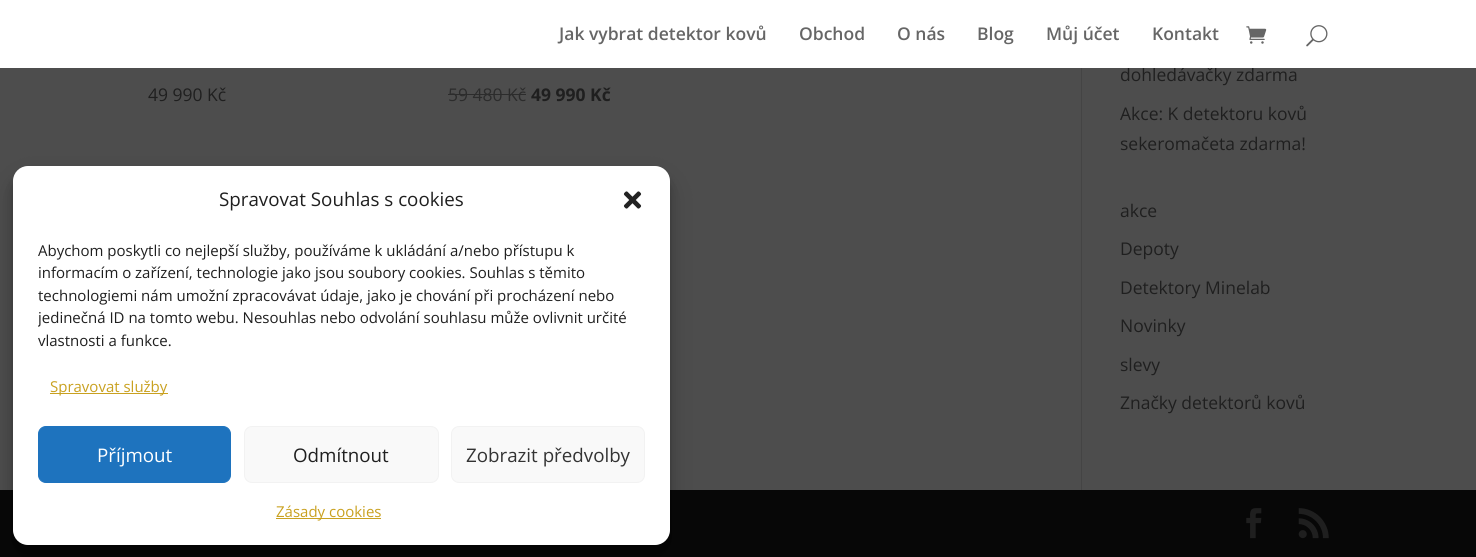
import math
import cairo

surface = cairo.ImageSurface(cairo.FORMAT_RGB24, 1476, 557)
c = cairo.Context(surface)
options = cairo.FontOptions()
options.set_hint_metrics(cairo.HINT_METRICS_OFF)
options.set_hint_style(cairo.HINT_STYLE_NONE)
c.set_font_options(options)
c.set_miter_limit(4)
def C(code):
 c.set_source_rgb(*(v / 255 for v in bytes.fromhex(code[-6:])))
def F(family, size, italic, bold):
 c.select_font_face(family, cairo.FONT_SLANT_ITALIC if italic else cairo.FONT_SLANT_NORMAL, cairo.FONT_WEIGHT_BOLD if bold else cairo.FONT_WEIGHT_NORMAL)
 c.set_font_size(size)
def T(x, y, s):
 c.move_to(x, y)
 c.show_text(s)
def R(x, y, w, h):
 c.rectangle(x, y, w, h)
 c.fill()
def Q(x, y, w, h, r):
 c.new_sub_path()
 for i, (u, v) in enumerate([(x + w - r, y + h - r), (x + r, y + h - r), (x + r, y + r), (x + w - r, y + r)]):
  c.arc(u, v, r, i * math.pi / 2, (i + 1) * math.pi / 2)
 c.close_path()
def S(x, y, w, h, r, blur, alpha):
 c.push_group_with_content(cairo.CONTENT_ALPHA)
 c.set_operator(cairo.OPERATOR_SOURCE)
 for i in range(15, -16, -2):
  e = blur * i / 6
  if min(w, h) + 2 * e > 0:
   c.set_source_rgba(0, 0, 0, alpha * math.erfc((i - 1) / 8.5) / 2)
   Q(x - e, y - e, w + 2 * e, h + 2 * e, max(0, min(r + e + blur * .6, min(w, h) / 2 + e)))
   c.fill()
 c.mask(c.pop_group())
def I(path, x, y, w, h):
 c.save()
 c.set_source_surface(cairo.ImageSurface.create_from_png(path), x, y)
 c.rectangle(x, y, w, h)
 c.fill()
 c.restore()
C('4d4d4d')
c.paint()
F('Open Sans',17.5,0,0)
C('1f1f1f')
T(1120,81,'dohledávačky zdarma')
C('ffffff')
R(0,0,1476,68)
F('Open Sans SemiBold',17.5,0,0)
C('666666')
T(559,40,'Jak vybrat detektor kovů')
T(799,40,'Obchod')
T(897,40,'O nás')
T(977,40,'Blog')
T(1046,40,'Můj účet')
T(1152,40,'Kontakt')
I('1.png',1246,26,21,18)
I('2.png',1306,25,22,22)
F('Open Sans',17.5,0,0)
C('1f1f1f')
T(148,101,'49 990 Kč')
C('2c2c2c')
T(448,101,'59 480 Kč')
R(448,94,78,1)
F('Open Sans',17.5,0,1)
C('1f1f1f')
T(531,101,'49 990 Kč')
F('Open Sans',17.5,0,0)
T(1120,120,'Akce: K detektoru kovů')
T(1120,150,'sekeromačeta zdarma!')
T(1120,217,'akce')
T(1120,255,'Depoty')
T(1120,294,'Detektory Minelab')
T(1120,332,'Novinky')
T(1120,371,'slevy')
T(1120,409,'Značky detektorů kovů')
C('444444')
R(1081,68,1,422)
C('070707')
R(0,490,1476,67)
I('3.png',1246,508,16,31)
I('4.png',1298,508,31,31)
C('000000')
S(13,174,657,379,15,4,.23)
S(13,179,657,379,15,12.5,.19)
C('ffffff')
Q(13,166,657,379,15)
c.fill()
F('Open Sans',18.75,0,0)
C('1f1f1f')
T(219,206,'Spravovat Souhlas s cookies')
I('5.png',623,191,19,18)
F('Open Sans',15,0,0)
T(38,256,'Abychom poskytli co nejlepší služby, používáme k ukládání a/nebo přístupu k')
T(38,278,'informacím o zařízení, technologie jako jsou soubory cookies. Souhlas s těmito')
T(38,301,'technologiemi nám umožní zpracovávat údaje, jako je chování při procházení nebo')
c.save()
c.rectangle(38,239,607,119)
c.clip()
T(38,323,'jedinečná ID na tomto webu. Nesouhlas nebo odvolání souhlasu může ovlivnit určité')
c.restore()
T(38,346,'vlastnosti a funkce.')
C('c9a120')
R(50,393,118,1)
T(50,392,'Spravovat služby')
C('1e73be')
Q(38.5,426.5,192,56,7.5)
c.fill_preserve()
c.set_line_width(1)
c.stroke()
F('Open Sans',18.75,0,0)
C('ffffff')
T(97,462,'Příjmout')
C('f9f9f9')
Q(244.5,426.5,194,56,7.5)
c.fill_preserve()
C('f2f2f2')
c.stroke()
C('1f1f1f')
T(293,462,'Odmítnout')
C('f9f9f9')
Q(451.5,426.5,193,56,7.5)
c.fill_preserve()
C('f2f2f2')
c.stroke()
C('333333')
T(466,462,'Zobrazit předvolby')
C('c9a120')
R(276,518,105,1)
F('Open Sans',15,0,0)
T(276,517,'Zásady cookies')
surface.write_to_png('o.png')
